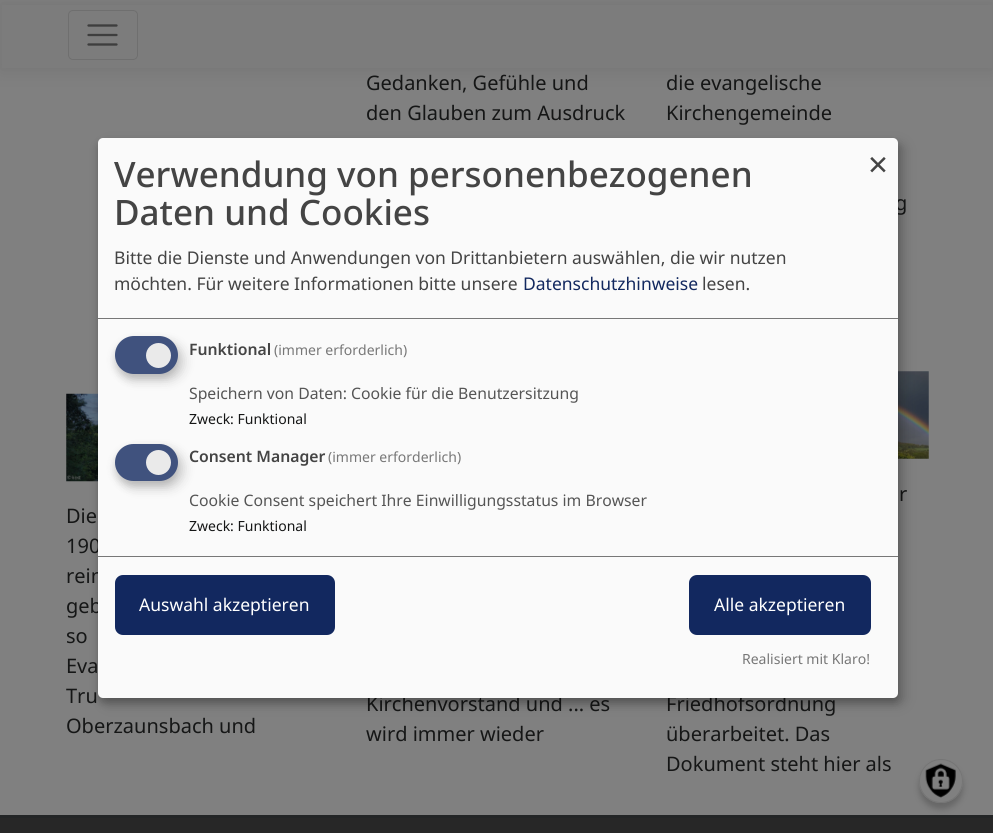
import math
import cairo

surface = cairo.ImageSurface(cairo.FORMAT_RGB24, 993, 833)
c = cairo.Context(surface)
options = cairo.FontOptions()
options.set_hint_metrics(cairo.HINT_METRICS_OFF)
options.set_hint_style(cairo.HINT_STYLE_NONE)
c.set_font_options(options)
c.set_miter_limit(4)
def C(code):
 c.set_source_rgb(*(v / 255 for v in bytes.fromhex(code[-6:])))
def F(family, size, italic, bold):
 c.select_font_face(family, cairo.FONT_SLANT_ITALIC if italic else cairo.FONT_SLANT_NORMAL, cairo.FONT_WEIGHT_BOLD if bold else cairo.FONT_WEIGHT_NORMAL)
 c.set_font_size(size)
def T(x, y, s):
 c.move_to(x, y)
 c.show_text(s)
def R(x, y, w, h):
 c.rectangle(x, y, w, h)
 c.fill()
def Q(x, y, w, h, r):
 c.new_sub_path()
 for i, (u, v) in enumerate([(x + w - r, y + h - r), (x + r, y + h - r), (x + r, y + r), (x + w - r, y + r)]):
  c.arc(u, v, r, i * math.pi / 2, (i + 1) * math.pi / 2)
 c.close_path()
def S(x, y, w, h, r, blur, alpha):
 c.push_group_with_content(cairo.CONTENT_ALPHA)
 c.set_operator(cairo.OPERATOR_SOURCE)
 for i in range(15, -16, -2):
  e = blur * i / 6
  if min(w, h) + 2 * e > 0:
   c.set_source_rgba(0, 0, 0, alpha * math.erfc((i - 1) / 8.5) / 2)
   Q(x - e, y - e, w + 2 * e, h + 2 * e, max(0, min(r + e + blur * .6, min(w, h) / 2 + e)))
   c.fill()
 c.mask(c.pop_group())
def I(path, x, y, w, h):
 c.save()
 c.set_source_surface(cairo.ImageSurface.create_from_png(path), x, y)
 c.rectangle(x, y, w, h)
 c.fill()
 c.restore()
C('808080')
c.paint()
C('000000')
S(0,3,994,67,0,9.5,.09)
C('7c7c7c')
R(2,5,990,63)
Q(68.5,10.5,69,49,4.5)
C('6f6f6f')
c.set_line_width(1)
c.stroke()
c.new_path()
c.move_to(88.5,25.5)
c.line_to(116.5,25.5)
c.move_to(88.5,35)
c.line_to(116.5,35)
c.move_to(88.5,44.5)
c.line_to(116.5,44.5)
C('3e3e3e')
c.set_line_width(2.3)
c.set_line_cap(cairo.LINE_CAP_ROUND)
c.stroke()
F('Noto Sans',20,0,0)
C('151616')
T(366,90,'Gedanken, Gefühle und')
T(366,120,'den Glauben zum Ausdruck')
T(666,90,'die evangelische')
T(666,120,'Kirchengemeinde')
T(895,210,'g')
I('1.png',66,393,32,89)
T(66,523,'Die')
T(66,553,'190')
T(66,583,'rein')
T(66,613,'geb')
T(66,643,'so')
T(66,673,'Eva')
T(66,703,'Tru')
T(66,733,'Oberzaunsbach und')
T(366,711,'Kirchenvorstand und ... es')
T(366,741,'wird immer wieder')
I('2.png',898,371,31,88)
T(899,501,'r')
T(666,711,'Friedhofsordnung')
T(666,741,'überarbeitet. Das')
T(666,771,'Dokument steht hier als')
C('272727')
R(0,818,993,15)
C('232526')
R(0,815,993,3)
C('000000')
S(104,144,800,560,5,6,.19)
S(98,143,800,560,5,4,.2)
C('fafafa')
Q(98,138,800,560,5)
c.fill()
C('777777')
R(98,318,800,1)
F('Noto Sans Medium',35,0,0)
C('444444')
T(114,187,'Verwendung von personenbezogenen')
T(114,225,'Daten und Cookies')
F('Noto Sans',17.5,0,0)
T(114,264,'Bitte die Dienste und Anwendungen von Drittanbietern auswählen, die wir nutzen')
T(114,290,'möchten. Für weitere Informationen bitte unsere')
C('12285f')
T(523,290,'Datenschutzhinweise')
C('444444')
T(702,290,'lesen.')
F('Noto Sans',35,0,0)
T(868,177,'×')
C('000000')
S(121,343,63,37,18.5,6,.15)
C('323232')
S(115,341,63,38,19,4,.2)
C('40527e')
Q(115,336,63,38,19)
c.fill()
C('eaeaea')
c.arc(158.5,355.5,12.5,0,2 * math.pi)
c.fill()
F('Noto Sans SemiBold',15.75,0,0)
C('444444')
T(189,355,'Funktional')
F('Noto Sans',14,0,0)
C('777777')
T(274,355,'(immer erforderlich)')
F('Noto Sans',15.75,0,0)
C('555555')
T(189,399,'Speichern von Daten: Cookie für die Benutzersitzung')
F('Noto Sans',14,0,0)
C('151616')
T(189,424,'Zweck: Funktional')
C('000000')
S(121,450,63,38,19,6,.15)
C('323232')
S(115,449,63,37,18.5,4,.2)
C('40527e')
Q(115,444,63,37,18.5)
c.fill()
C('eaeaea')
c.arc(158.5,462.5,12.5,0,2 * math.pi)
c.fill()
F('Noto Sans SemiBold',15.75,0,0)
C('444444')
T(189,462,'Consent Manager')
F('Noto Sans',14,0,0)
C('777777')
T(328,462,'(immer erforderlich)')
F('Noto Sans',15.75,0,0)
C('555555')
T(189,506,'Cookie Consent speichert Ihre Einwilligungsstatus im Browser')
F('Noto Sans',14,0,0)
C('151616')
T(189,531,'Zweck: Funktional')
C('777777')
R(98,556,800,1)
C('12285f')
Q(117,577,216,56,6)
c.fill_preserve()
c.set_line_width(4)
c.set_line_cap(cairo.LINE_CAP_BUTT)
c.stroke()
F('Noto Sans',17.5,0,0)
C('ffffff')
T(139,611,'Auswahl akzeptieren')
C('12285f')
Q(691,577,178,56,6)
c.fill_preserve()
c.stroke()
C('ffffff')
T(714,611,'Alle akzeptieren')
F('Noto Sans',14,0,0)
C('777777')
T(742,664,'Realisiert mit Klaro!')
C('000000')
S(919,765,44,44,22,3,.2)
C('808080')
c.arc(941,781,22,0,2 * math.pi)
c.fill()
I('3.png',925,763,31,35)
c.arc(941,781,21.5,0,2 * math.pi)
C('757575')
c.set_line_width(1)
c.stroke()
surface.write_to_png('o.png')
